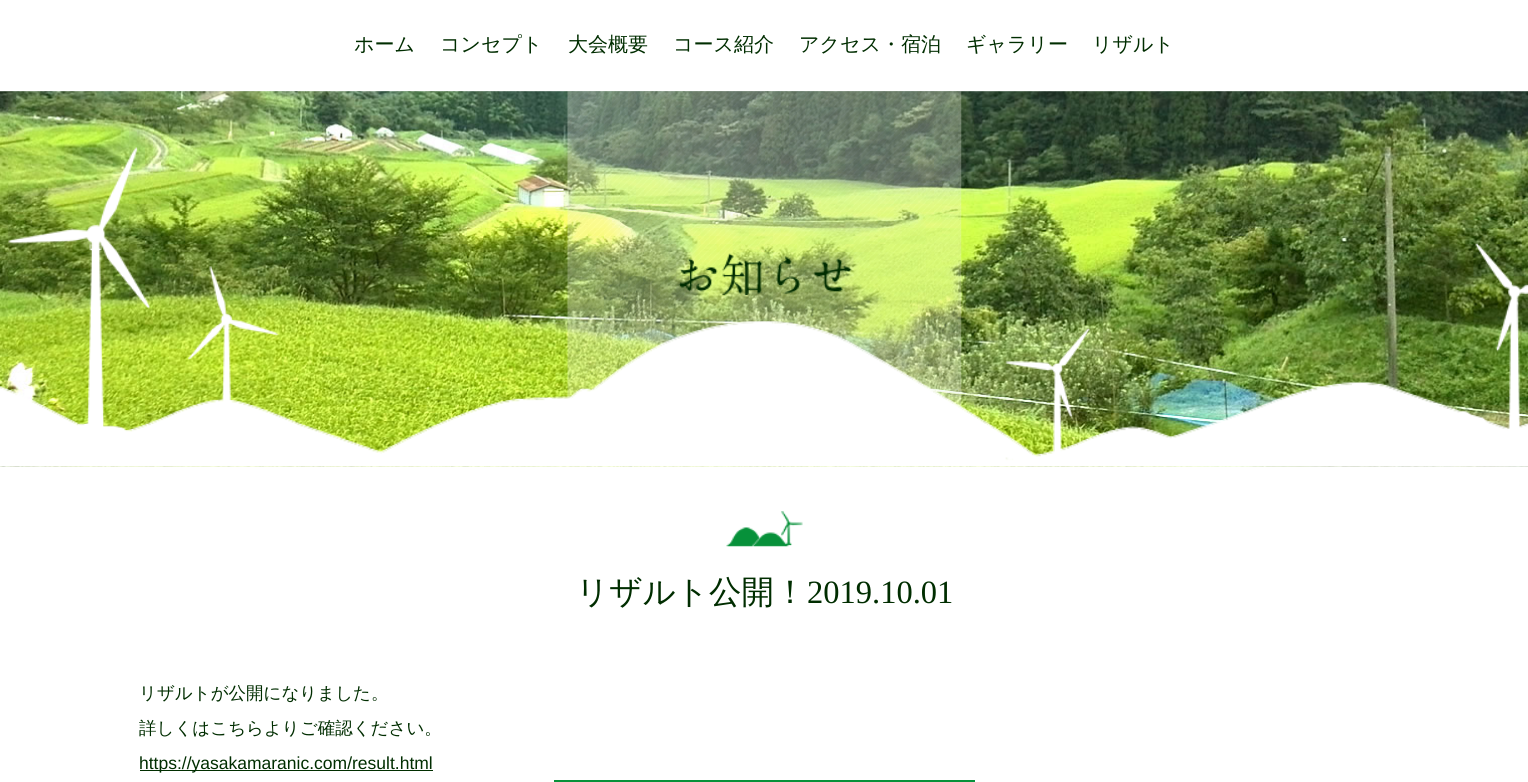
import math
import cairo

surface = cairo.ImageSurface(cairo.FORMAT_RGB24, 1528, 782)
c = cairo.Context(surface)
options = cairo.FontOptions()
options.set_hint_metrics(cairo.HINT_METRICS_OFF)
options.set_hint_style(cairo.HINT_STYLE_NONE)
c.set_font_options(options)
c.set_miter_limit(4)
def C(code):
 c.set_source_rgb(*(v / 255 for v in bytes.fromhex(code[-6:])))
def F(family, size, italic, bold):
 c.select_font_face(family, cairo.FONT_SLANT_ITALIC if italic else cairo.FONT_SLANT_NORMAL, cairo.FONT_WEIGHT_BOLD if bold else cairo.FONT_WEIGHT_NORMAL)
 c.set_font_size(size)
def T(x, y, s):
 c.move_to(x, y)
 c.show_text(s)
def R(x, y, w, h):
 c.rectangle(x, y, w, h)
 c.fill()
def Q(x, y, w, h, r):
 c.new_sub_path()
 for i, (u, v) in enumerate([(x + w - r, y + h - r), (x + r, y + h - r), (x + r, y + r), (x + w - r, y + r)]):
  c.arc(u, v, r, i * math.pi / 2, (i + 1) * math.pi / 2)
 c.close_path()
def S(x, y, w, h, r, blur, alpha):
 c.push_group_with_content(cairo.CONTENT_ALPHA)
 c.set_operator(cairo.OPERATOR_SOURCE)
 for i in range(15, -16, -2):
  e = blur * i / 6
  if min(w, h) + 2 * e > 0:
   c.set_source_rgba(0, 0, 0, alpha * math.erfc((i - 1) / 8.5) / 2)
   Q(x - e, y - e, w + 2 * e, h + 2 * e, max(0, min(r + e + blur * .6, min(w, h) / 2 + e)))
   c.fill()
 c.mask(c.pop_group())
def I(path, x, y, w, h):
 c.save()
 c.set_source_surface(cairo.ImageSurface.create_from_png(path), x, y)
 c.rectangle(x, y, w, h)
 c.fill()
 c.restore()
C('ffffff')
c.paint()
c.save()
c.rectangle(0,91,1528,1)
c.clip()
C('d5dfd8')
S(0,1,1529,92,0,1,1)
c.restore()
F('WenQuanYi Zen Hei Medium',20,0,0)
C('002d00')
T(354,51,'ホーム')
T(440,51,'コンセプト')
T(568,51,'大会概要')
T(673,51,'コース紹介')
T(799,51,'アクセス・宿泊')
T(966,51,'ギャラリー')
T(1092,51,'リザルト')
I('1.png',0,91,1528,376)
I('2.png',567,91,395,319)
I('3.png',678,253,174,42)
I('4.png',0,147,1528,320)
I('5.png',726,511,77,36)
F('WenQuanYi Zen Hei Medium',32.5,0,0)
T(576,603,'リザルト公開！')
F('Liberation Serif',32.5,0,0)
T(807,603,'2019.10.01')
F('WenQuanYi Zen Hei Medium',17.5,0,0)
T(139,699,'リザルトが公開になりました。')
T(139,734,'詳しくはこちらよりご確認ください。')
C('012e00')
R(140,770,293,1)
F('Liberation Sans',17.5,0,0)
C('002d00')
T(139,769,'https://yasakamaranic.com/result.html')
c.rectangle(555.5,781.5,418,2)
C('07913a')
c.set_line_width(3)
c.stroke()
surface.write_to_png('o.png')
